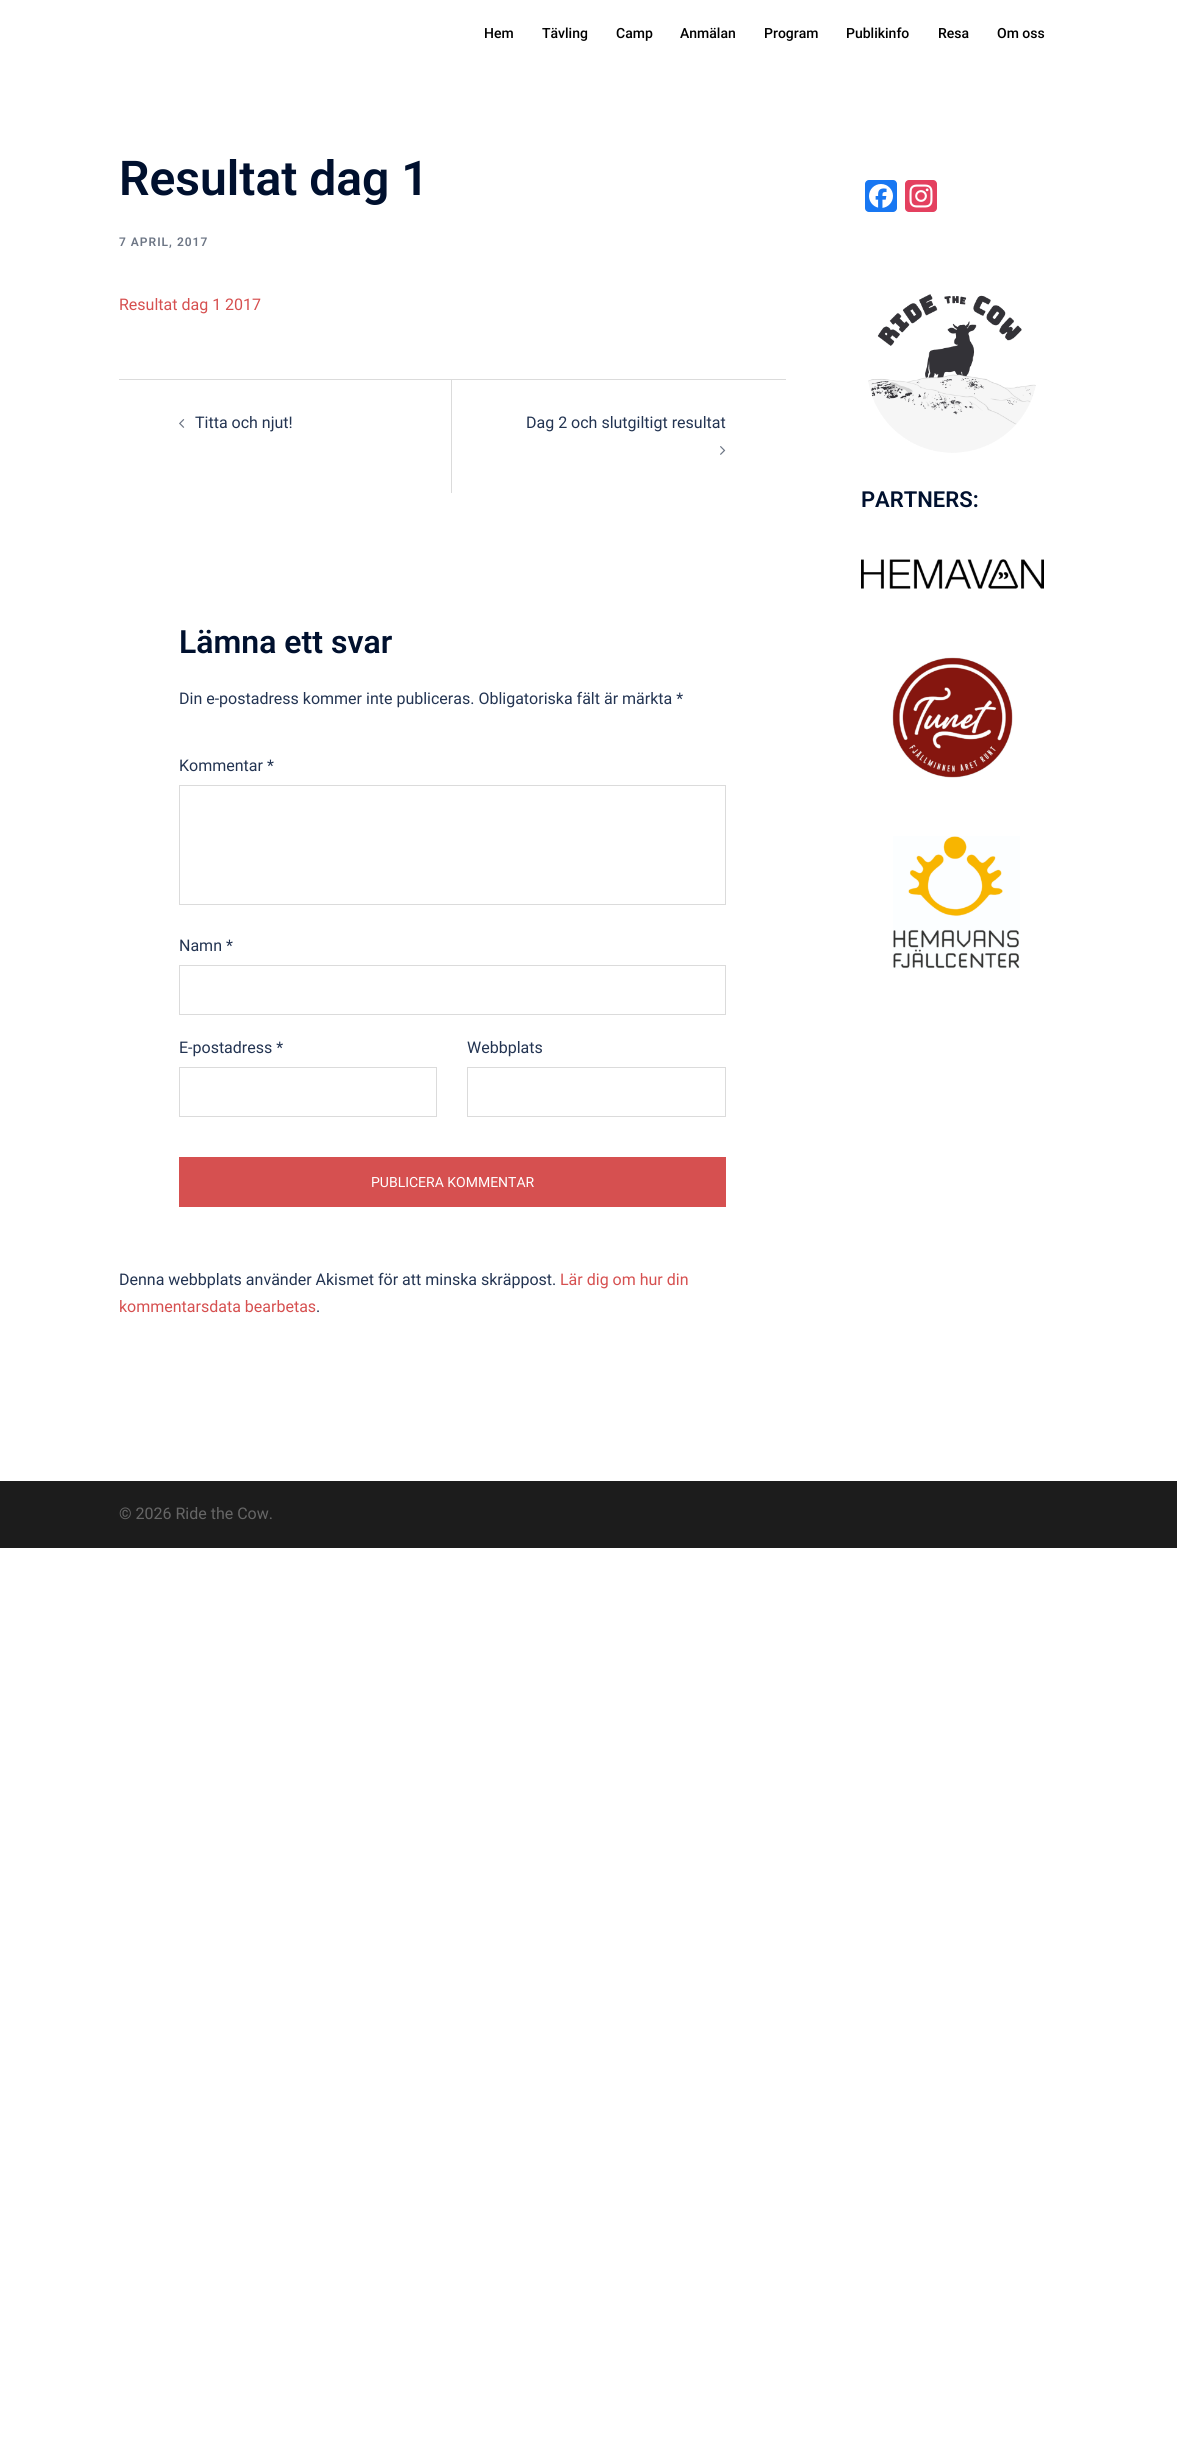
import math
import cairo

surface = cairo.ImageSurface(cairo.FORMAT_RGB24, 1177, 2464)
c = cairo.Context(surface)
options = cairo.FontOptions()
options.set_hint_metrics(cairo.HINT_METRICS_OFF)
options.set_hint_style(cairo.HINT_STYLE_NONE)
c.set_font_options(options)
c.set_miter_limit(4)
def C(code):
 c.set_source_rgb(*(v / 255 for v in bytes.fromhex(code[-6:])))
def F(family, size, italic, bold):
 c.select_font_face(family, cairo.FONT_SLANT_ITALIC if italic else cairo.FONT_SLANT_NORMAL, cairo.FONT_WEIGHT_BOLD if bold else cairo.FONT_WEIGHT_NORMAL)
 c.set_font_size(size)
def T(x, y, s):
 c.move_to(x, y)
 c.show_text(s)
def L(x, y, s, letter, word):
 c.move_to(x, y)
 for ch in s:
  c.show_text(ch)
  c.rel_move_to(letter + word * (ch == ' '), 0)
def R(x, y, w, h):
 c.rectangle(x, y, w, h)
 c.fill()
def Q(x, y, w, h, r):
 c.new_sub_path()
 for i, (u, v) in enumerate([(x + w - r, y + h - r), (x + r, y + h - r), (x + r, y + r), (x + w - r, y + r)]):
  c.arc(u, v, r, i * math.pi / 2, (i + 1) * math.pi / 2)
 c.close_path()
def I(path, x, y, w, h):
 c.save()
 c.set_source_surface(cairo.ImageSurface.create_from_png(path), x, y)
 c.rectangle(x, y, w, h)
 c.fill()
 c.restore()
C('ffffff')
c.paint()
F('Roboto Medium',14,0,0)
C('000000')
T(484,38,'Hem')
T(542,38,'Tävling')
T(616,38,'Camp')
T(680,38,'Anmälan')
T(764,38,'Program')
T(846,38,'Publikinfo')
T(938,38,'Resa')
T(997,38,'Om oss')
F('Roboto SemiBold',48,0,0)
C('00102e')
T(119,195,'Resultat dag 1')
F('Roboto SemiBold',12,0,0)
C('6d7685')
L(119,246,'7 APRIL, 2017',1,0)
F('Roboto',16,0,0)
C('d65050')
T(119,310,'Resultat dag 1 2017')
C('dbdbdb')
R(119,379,667,1)
R(451,380,1,113)
I('1.png',179,419,6,9)
C('233452')
T(195,428,'Titta och njut!')
T(526,428,'Dag 2 och slutgiltigt resultat')
I('2.png',720,446,6,9)
F('Roboto SemiBold',32,0,0)
C('00102e')
T(179,653,'Lämna ett svar')
F('Roboto',16,0,0)
C('233452')
T(179,704,'Din e-postadress kommer inte publiceras. Obligatoriska fält är märkta *')
T(179,771,'Kommentar *')
c.rectangle(179.5,785.5,546,119)
C('dbdbdb')
c.set_line_width(1)
c.stroke()
C('233452')
T(179,951,'Namn *')
c.rectangle(179.5,965.5,546,49)
C('dbdbdb')
c.stroke()
C('233452')
T(179,1053,'E-postadress *')
c.rectangle(179.5,1067.5,257,49)
C('dbdbdb')
c.stroke()
C('233452')
T(467,1053,'Webbplats')
c.rectangle(467.5,1067.5,258,49)
C('dbdbdb')
c.stroke()
C('d65050')
R(179,1157,547,50)
F('Roboto',14,0,0)
C('ffffff')
T(371,1187,'PUBLICERA KOMMENTAR')
F('Roboto',16,0,0)
C('233452')
T(119,1285,'Denna webbplats använder Akismet för att minska skräppost.')
C('d65050')
T(560,1285,'Lär dig om hur din')
T(119,1312,'kommentarsdata bearbetas')
C('233452')
T(316,1312,'.')
C('1877f2')
Q(865,180,32,32,4)
c.fill()
I('3.png',869,184,24,24)
C('e4405f')
Q(905,180,32,32,4)
c.fill()
I('4.png',909,184,24,24)
I('5.png',868,294,168,159)
F('Roboto SemiBold',22,0,0)
C('00102e')
T(861,507,'PARTNERS:')
I('6.png',861,559,183,30)
I('7.png',892,657,121,121)
I('8.png',893,836,127,133)
C('1c1c1c')
R(0,1481,1177,67)
F('Roboto',16,0,0)
C('666666')
T(119,1519,'© 2026 Ride the Cow.')
surface.write_to_png('o.png')
